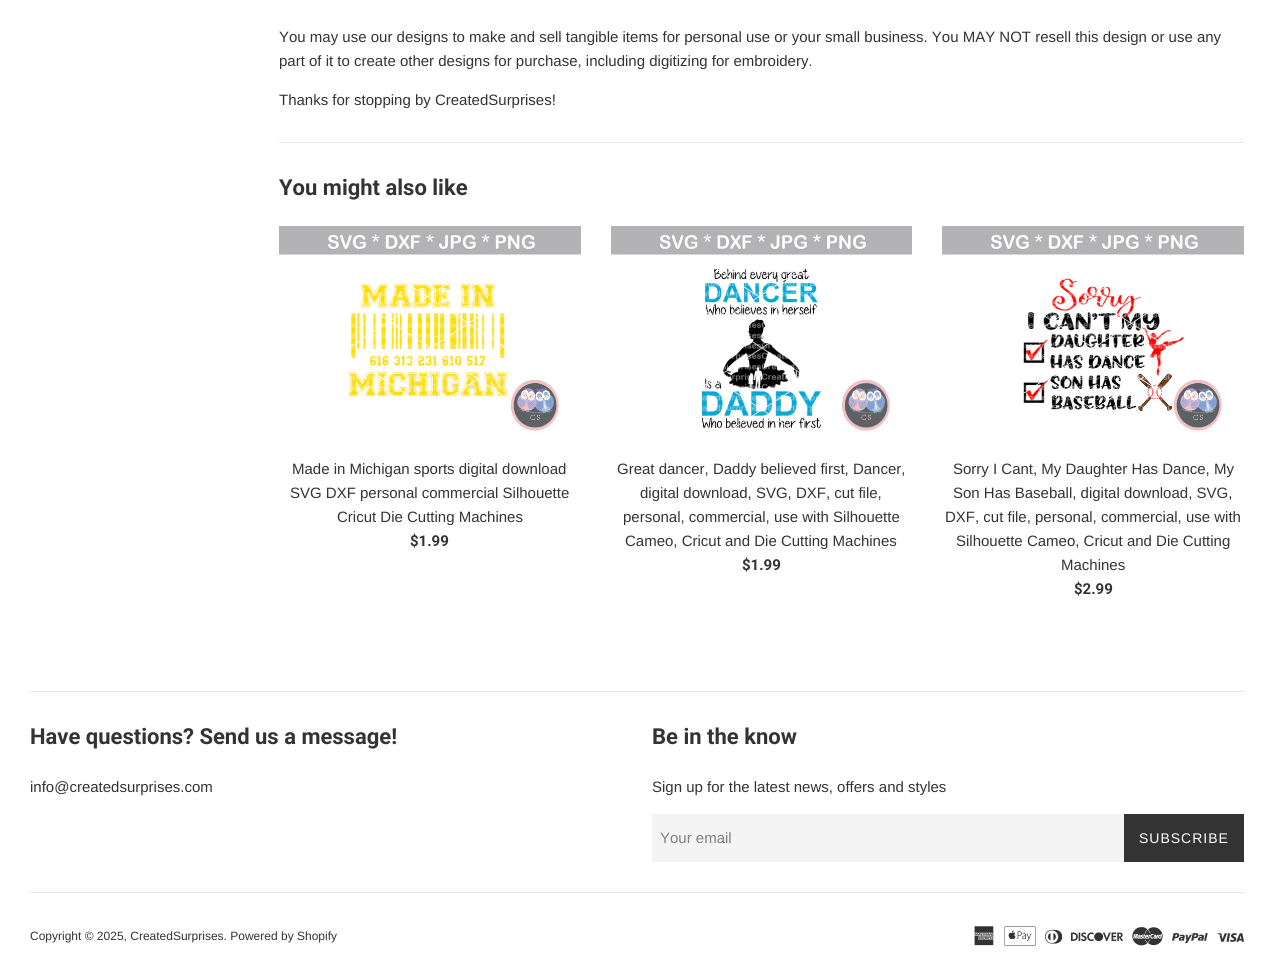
import math
import cairo

surface = cairo.ImageSurface(cairo.FORMAT_RGB24, 1274, 977)
c = cairo.Context(surface)
options = cairo.FontOptions()
options.set_hint_metrics(cairo.HINT_METRICS_OFF)
options.set_hint_style(cairo.HINT_STYLE_NONE)
c.set_font_options(options)
c.set_miter_limit(4)
def C(code):
 c.set_source_rgb(*(v / 255 for v in bytes.fromhex(code[-6:])))
def F(family, size, italic, bold):
 c.select_font_face(family, cairo.FONT_SLANT_ITALIC if italic else cairo.FONT_SLANT_NORMAL, cairo.FONT_WEIGHT_BOLD if bold else cairo.FONT_WEIGHT_NORMAL)
 c.set_font_size(size)
def T(x, y, s):
 c.move_to(x, y)
 c.show_text(s)
def L(x, y, s, letter, word):
 c.move_to(x, y)
 for ch in s:
  c.show_text(ch)
  c.rel_move_to(letter + word * (ch == ' '), 0)
def R(x, y, w, h):
 c.rectangle(x, y, w, h)
 c.fill()
def I(path, x, y, w, h):
 c.save()
 c.set_source_surface(cairo.ImageSurface.create_from_png(path), x, y)
 c.rectangle(x, y, w, h)
 c.fill()
 c.restore()
C('ffffff')
c.paint()
F('Liberation Sans',15,0,0)
C('333333')
T(279,42,'You may use our designs to make and sell tangible items for personal use or your small business. You MAY NOT resell this design or use any')
T(279,66,'part of it to create other designs for purchase, including digitizing for embroidery.')
T(279,105,'Thanks for stopping by CreatedSurprises!')
C('e8e8e8')
R(279,142,965,1)
F('Roboto',22,0,1)
C('333333')
T(279,195,'You might also like')
I('1.png',279,226,302,205)
F('Liberation Sans',15,0,0)
T(292,474,'Made in Michigan sports digital download')
T(290,498,'SVG DXF personal commercial Silhouette')
T(337,522,'Cricut Die Cutting Machines')
F('Roboto',15,0,1)
T(410,546,'$1.99')
I('2.png',611,226,301,205)
F('Liberation Sans',15,0,0)
T(617,474,'Great dancer, Daddy believed first, Dancer,')
T(640,498,'digital download, SVG, DXF, cut file,')
T(623,522,'personal, commercial, use with Silhouette')
T(625,546,'Cameo, Cricut and Die Cutting Machines')
F('Roboto',15,0,1)
T(742,570,'$1.99')
I('3.png',942,226,302,205)
F('Liberation Sans',15,0,0)
T(953,474,'Sorry I Cant, My Daughter Has Dance, My')
T(953,498,'Son Has Baseball, digital download, SVG,')
T(945,522,'DXF, cut file, personal, commercial, use with')
T(956,546,'Silhouette Cameo, Cricut and Die Cutting')
T(1061,570,'Machines')
F('Roboto',15,0,1)
T(1074,594,'$2.99')
C('e8e8e8')
R(30,691,1214,1)
F('Roboto',22,0,1)
C('333333')
T(30,744,'Have questions? Send us a message!')
F('Liberation Sans',15,0,0)
T(30,792,'info@createdsurprises.com')
F('Roboto',22,0,1)
T(652,744,'Be in the know')
F('Liberation Sans',15,0,0)
T(652,792,'Sign up for the latest news, offers and styles')
C('f4f4f4')
R(652,814,472,48)
C('808080')
T(660,843,'Your email')
C('333333')
R(1124,814,120,48)
F('Liberation Sans',14,0,0)
C('ffffff')
L(1139,843,'SUBSCRIBE',1,0)
C('e8e8e8')
R(30,892,1214,1)
F('Liberation Sans',12,0,0)
C('333333')
T(30,940,'Copyright © 2025, CreatedSurprises. Powered by Shopify')
I('4.png',974,926,20,20)
I('5.png',1004,926,32,20)
I('6.png',1045,929,17,15)
I('7.png',1071,932,52,10)
I('8.png',1132,927,31,19)
I('9.png',1172,933,36,11)
I('10.png',1217,933,27,9)
surface.write_to_png('o.png')
